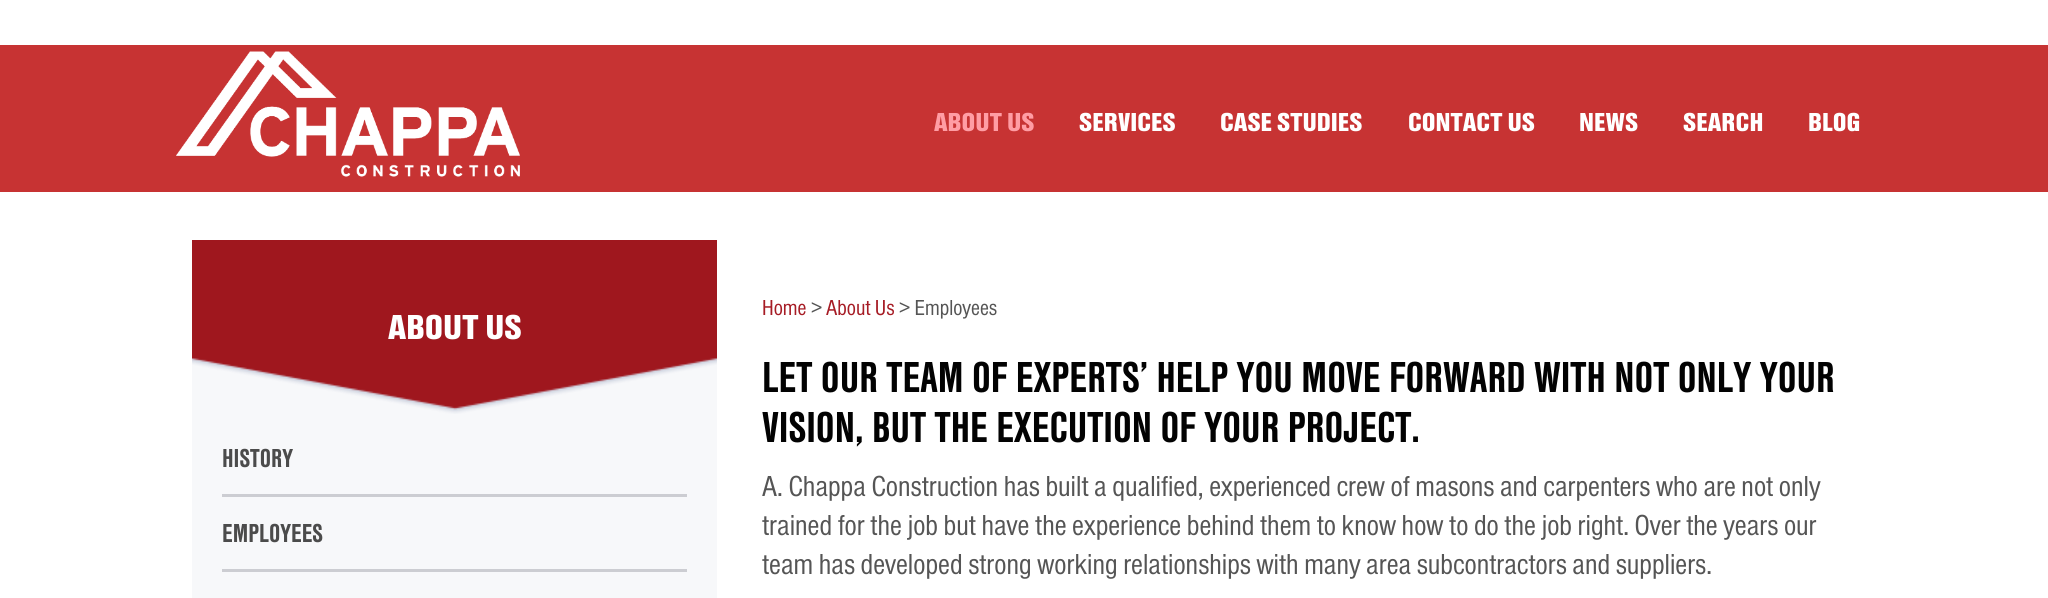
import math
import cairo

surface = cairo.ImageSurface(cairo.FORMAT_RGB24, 2048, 598)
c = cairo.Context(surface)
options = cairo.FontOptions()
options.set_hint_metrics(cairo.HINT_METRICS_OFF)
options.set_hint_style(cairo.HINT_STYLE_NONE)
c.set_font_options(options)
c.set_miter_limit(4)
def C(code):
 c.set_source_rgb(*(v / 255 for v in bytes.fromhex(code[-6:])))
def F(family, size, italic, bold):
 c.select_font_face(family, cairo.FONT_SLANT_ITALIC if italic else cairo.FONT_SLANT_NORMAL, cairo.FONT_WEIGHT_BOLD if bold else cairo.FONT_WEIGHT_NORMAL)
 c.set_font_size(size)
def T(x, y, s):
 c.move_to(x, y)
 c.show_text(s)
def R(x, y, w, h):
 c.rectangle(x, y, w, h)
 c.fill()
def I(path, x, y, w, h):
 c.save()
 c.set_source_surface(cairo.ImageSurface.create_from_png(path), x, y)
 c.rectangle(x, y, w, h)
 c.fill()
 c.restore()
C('ffffff')
c.paint()
C('c73333')
R(0,45,2048,147)
I('1.png',176,51,344,126)
F('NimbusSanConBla',27,0,0)
C('ff9da4')
T(934,131,'ABOUT US')
C('ffffff')
T(1079,131,'SERVICES')
T(1220,131,'CASE STUDIES')
T(1408,131,'CONTACT US')
T(1579,131,'NEWS')
T(1683,131,'SEARCH')
T(1808,131,'BLOG')
C('f7f8fa')
R(192,357,525,241)
I('2.png',192,240,525,174)
F('NimbusSanConBla',36,0,0)
C('ffffff')
T(388,339,'ABOUT US')
C('cccdd2')
R(222,494,465,3)
F('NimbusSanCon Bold',27,0,1)
C('4b4b4b')
T(222,467,'HISTORY')
C('cccdd2')
R(222,569,465,3)
C('4b4b4b')
T(222,542,'EMPLOYEES')
F('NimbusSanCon',22.5,0,0)
C('a61c25')
T(762,315,'Home')
C('555555')
T(811,315,'>')
C('a61c25')
T(826,315,'About Us')
C('555555')
T(899,315,'> Employees')
F('NimbusSanCon Bold',45,0,1)
C('020202')
T(762,392,'LET OUR TEAM OF EXPERTS’ HELP YOU MOVE FORWARD WITH NOT ONLY YOUR')
T(762,442,'VISION, BUT THE EXECUTION OF YOUR PROJECT.')
F('NimbusSanCon',30,0,0)
C('555555')
T(762,496,'A. Chappa Construction has built a qualified, experienced crew of masons and carpenters who are not only')
T(762,535,'trained for the job but have the experience behind them to know how to do the job right. Over the years our')
T(762,574,'team has developed strong working relationships with many area subcontractors and suppliers.')
surface.write_to_png('o.png')
